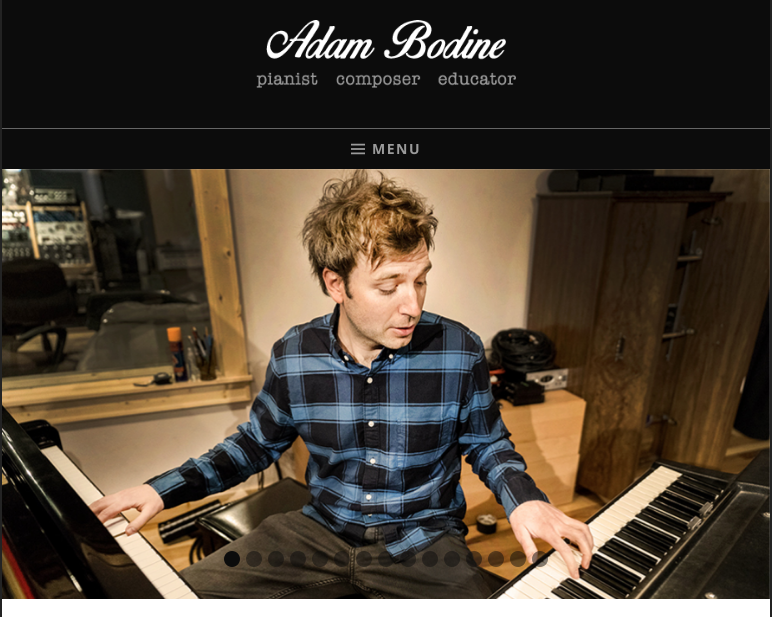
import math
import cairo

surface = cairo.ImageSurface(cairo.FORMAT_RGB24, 772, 617)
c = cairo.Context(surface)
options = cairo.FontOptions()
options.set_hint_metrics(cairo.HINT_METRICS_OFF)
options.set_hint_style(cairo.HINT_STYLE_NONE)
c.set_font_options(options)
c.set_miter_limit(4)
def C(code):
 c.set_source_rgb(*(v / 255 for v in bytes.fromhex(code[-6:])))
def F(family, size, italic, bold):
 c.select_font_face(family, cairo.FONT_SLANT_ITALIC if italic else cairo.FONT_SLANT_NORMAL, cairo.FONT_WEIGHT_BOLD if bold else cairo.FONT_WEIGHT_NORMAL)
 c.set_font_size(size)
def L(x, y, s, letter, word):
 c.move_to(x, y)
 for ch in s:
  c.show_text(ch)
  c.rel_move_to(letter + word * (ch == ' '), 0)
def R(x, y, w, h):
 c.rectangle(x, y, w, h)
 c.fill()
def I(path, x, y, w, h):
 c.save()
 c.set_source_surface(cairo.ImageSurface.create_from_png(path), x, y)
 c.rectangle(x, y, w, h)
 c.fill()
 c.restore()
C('232323')
c.paint()
C('ffffff')
R(2,169,768,448)
C('0c0c0c')
R(2,0,768,169)
I('1.png',256,20,260,68)
C('666666')
R(2,128,768,1)
I('2.png',351,143,14,12)
F('Open Sans',14,0,1)
C('9b9b9b')
L(372,154,'MENU',1.5,0)
I('3.png',2,169,768,430)
C('0c0c0c')
c.arc(232,559,8,0,2 * math.pi)
c.fill()
c.set_source_rgba(0.047,0.047,0.047,0.5)
c.arc(254,559,8,0,2 * math.pi)
c.fill()
c.arc(276,559,8,0,2 * math.pi)
c.fill()
c.arc(298,559,8,0,2 * math.pi)
c.fill()
c.arc(320,559,8,0,2 * math.pi)
c.fill()
c.arc(342,559,8,0,2 * math.pi)
c.fill()
c.arc(364,559,8,0,2 * math.pi)
c.fill()
c.arc(386,559,8,0,2 * math.pi)
c.fill()
c.arc(408,559,8,0,2 * math.pi)
c.fill()
c.arc(430,559,8,0,2 * math.pi)
c.fill()
c.arc(452,559,8,0,2 * math.pi)
c.fill()
c.arc(474,559,8,0,2 * math.pi)
c.fill()
c.arc(496,559,8,0,2 * math.pi)
c.fill()
c.arc(518,559,8,0,2 * math.pi)
c.fill()
c.arc(540,559,8,0,2 * math.pi)
c.fill()
surface.write_to_png('o.png')
